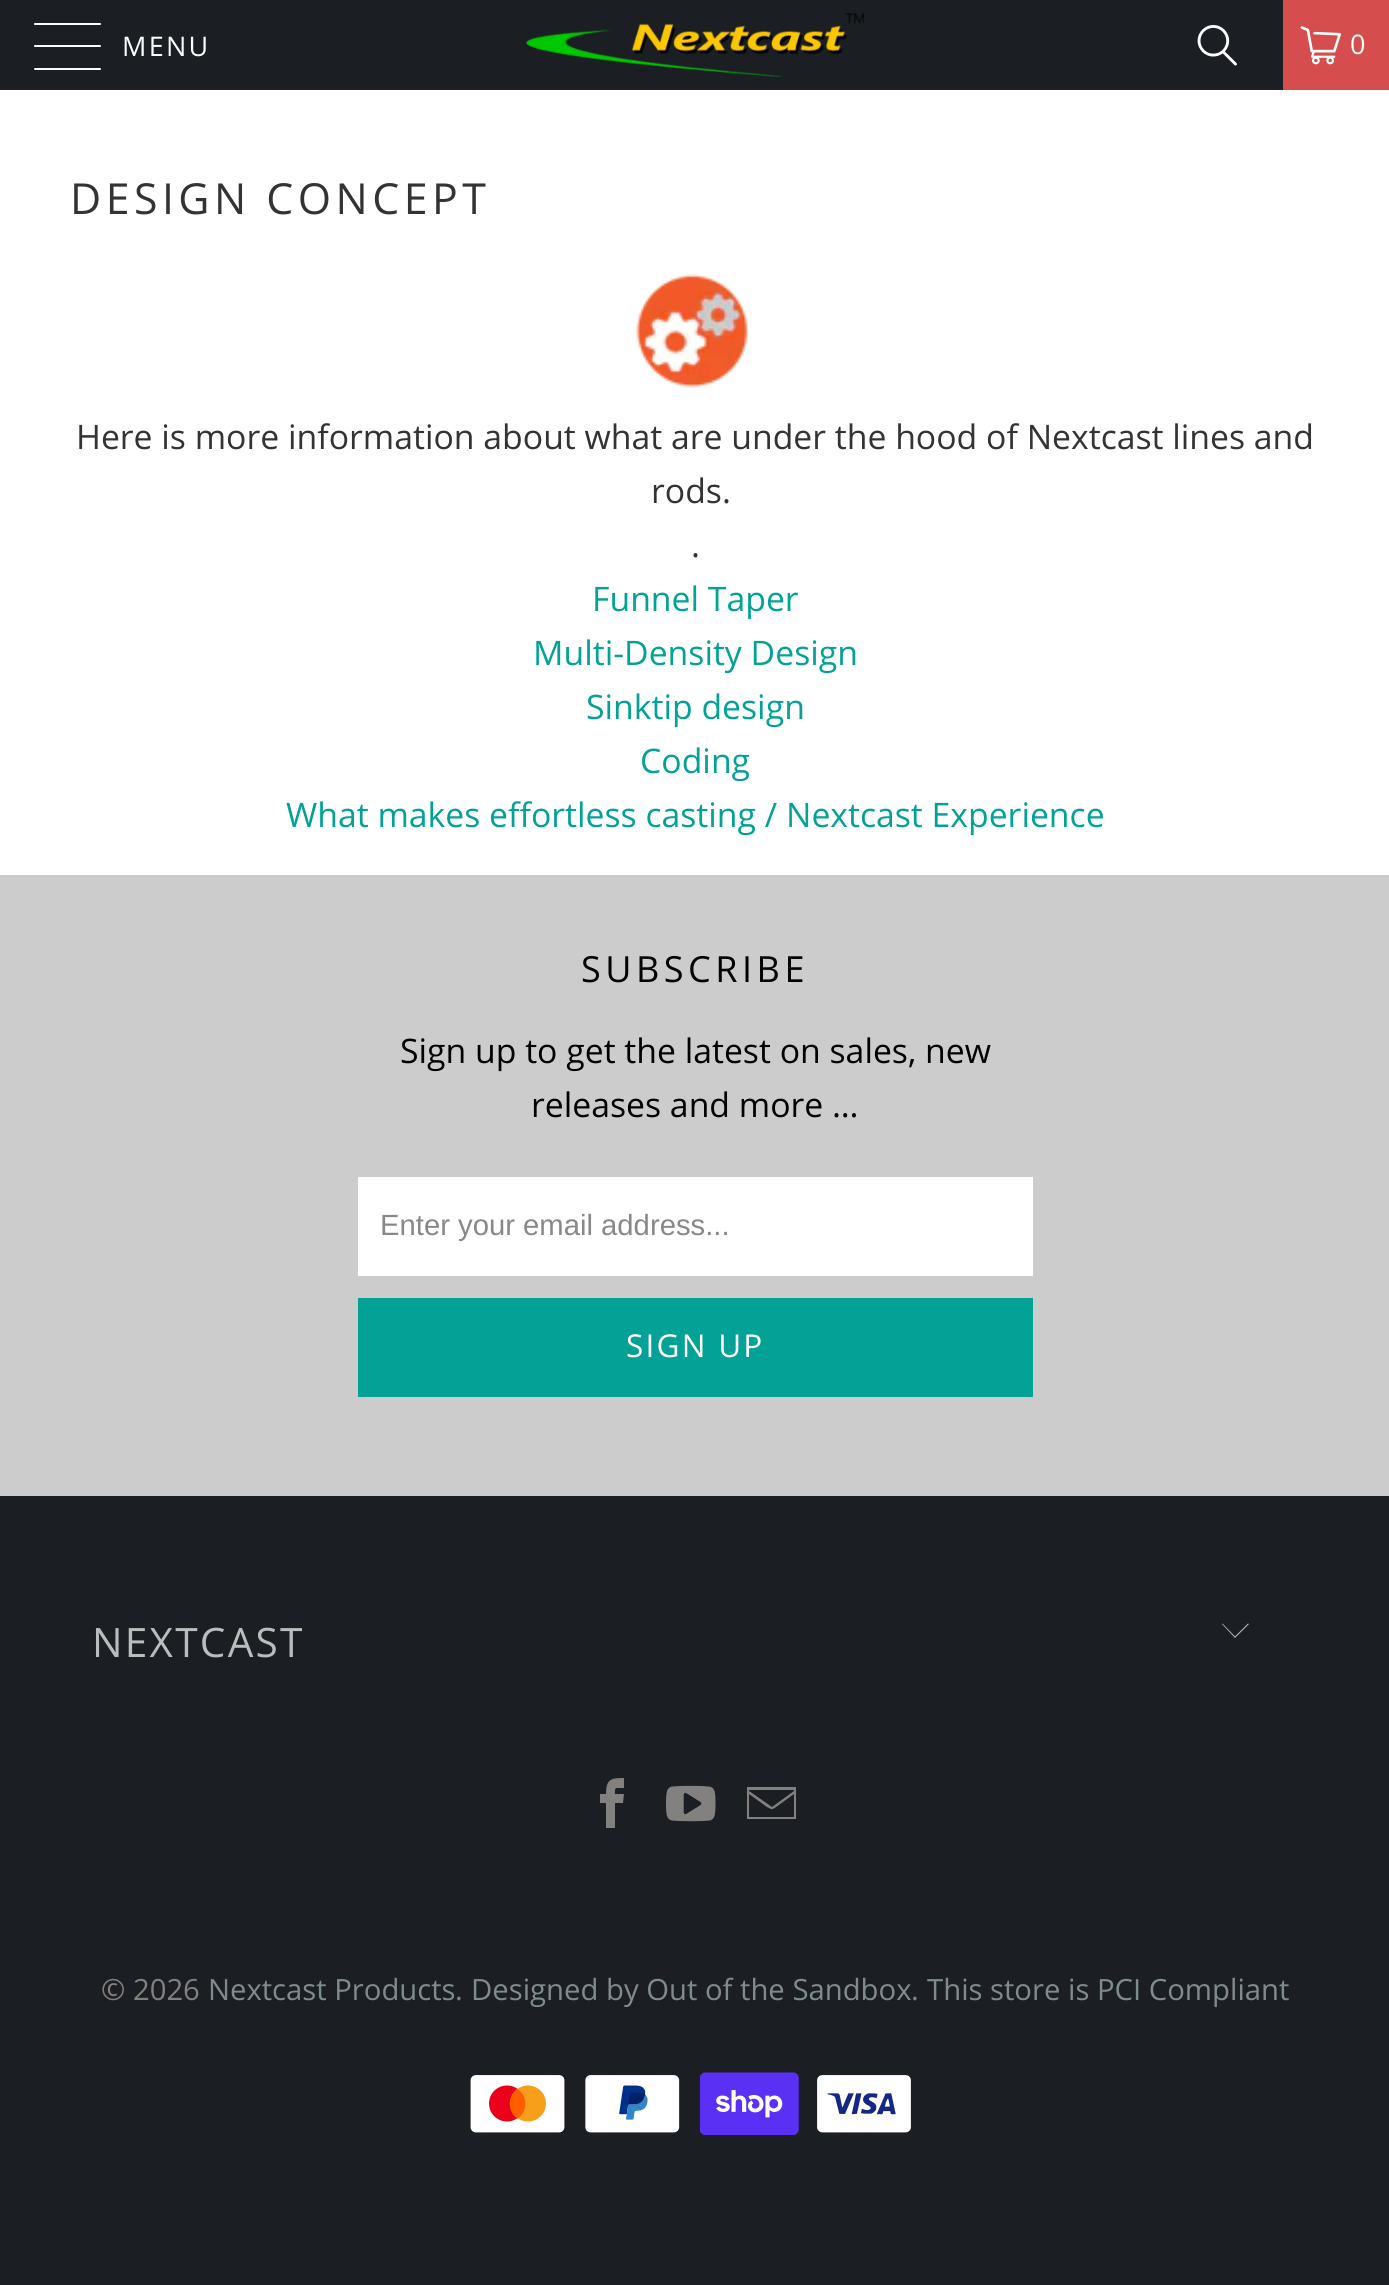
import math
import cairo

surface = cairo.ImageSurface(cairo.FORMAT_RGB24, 1389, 2285)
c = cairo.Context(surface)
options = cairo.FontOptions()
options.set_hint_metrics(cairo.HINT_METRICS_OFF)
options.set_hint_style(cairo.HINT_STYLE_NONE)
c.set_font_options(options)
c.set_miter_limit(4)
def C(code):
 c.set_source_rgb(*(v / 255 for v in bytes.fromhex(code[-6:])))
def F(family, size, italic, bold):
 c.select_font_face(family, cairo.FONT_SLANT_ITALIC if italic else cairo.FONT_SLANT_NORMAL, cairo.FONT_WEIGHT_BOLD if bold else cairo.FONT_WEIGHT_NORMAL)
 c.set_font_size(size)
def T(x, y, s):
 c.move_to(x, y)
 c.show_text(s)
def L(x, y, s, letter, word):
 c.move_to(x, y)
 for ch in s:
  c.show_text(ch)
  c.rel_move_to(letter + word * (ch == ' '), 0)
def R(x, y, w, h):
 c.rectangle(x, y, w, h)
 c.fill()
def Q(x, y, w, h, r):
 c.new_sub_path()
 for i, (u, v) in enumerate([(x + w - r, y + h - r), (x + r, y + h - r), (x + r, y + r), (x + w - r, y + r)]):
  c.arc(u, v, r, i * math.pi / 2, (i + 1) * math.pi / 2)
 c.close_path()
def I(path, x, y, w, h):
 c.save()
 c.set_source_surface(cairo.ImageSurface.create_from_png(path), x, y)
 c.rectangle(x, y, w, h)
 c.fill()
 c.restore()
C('ffffff')
c.paint()
C('1b1f23')
R(0,0,1283,90)
C('ffffff')
Q(34,23,67,2,1)
c.fill()
Q(34,45,67,2,1)
c.fill()
Q(34,68,67,2,1)
c.fill()
F('Open Sans',27,0,0)
L(122,56,'MENU',2.25,0)
I('1.png',526,13,338,64)
I('2.png',1197,25,40,41)
C('d54d4d')
R(1283,0,106,90)
I('3.png',1300,26,41,39)
C('ffffff')
L(1350,54,'0',2.25,0)
F('Open Sans',42.75,0,0)
C('333333')
L(70,214,'DESIGN CONCEPT',4.5,0)
I('4.png',636,274,112,114)
F('Open Sans',33.75,0,0)
T(76,449,'Here is more information about what are under the hood of Nextcast lines and')
T(651,503,'rods.')
T(691,557,'.')
C('03a196')
T(592,611,'Funnel Taper')
T(533,665,'Multi-Density Design')
T(586,719,'Sinktip design')
T(640,773,'Coding')
T(286,827,'What makes effortless casting / Nextcast Experience')
C('cccccc')
R(0,875,1389,621)
F('Open Sans',36,0,0)
C('000000')
L(581,982,'SUBSCRIBE',4.5,0)
F('Open Sans',33.75,0,0)
T(400,1063,'Sign up to get the latest on sales, new')
T(531,1117,'releases and more …')
C('ffffff')
R(358,1177,675,99)
F('Liberation Sans',29.25,0,0)
C('888888')
T(380,1235,'Enter your email address...')
C('03a196')
R(358,1298,675,99)
F('Open Sans',31.5,0,0)
C('ffffff')
L(626,1357,'SIGN UP',2.25,0)
C('1b1f23')
R(0,1496,1389,789)
F('Open Sans',40.5,0,0)
C('b9bdbd')
L(92,1657,'NEXTCAST',2.25,0)
c.new_path()
c.move_to(1235,1638)
c.line_to(1222,1624)
c.line_to(1222.5,1623.5)
c.line_to(1235,1636.5)
c.line_to(1248,1623.5)
c.line_to(1249,1624)
c.close_path()
c.fill()
C('838080')
c.new_path()
c.move_to(617,1788)
c.line_to(624,1788)
c.line_to(624,1778)
c.curve_to(611,1778,606,1779,606,1794)
c.line_to(600,1794)
c.line_to(600,1803)
c.line_to(606,1803)
c.line_to(606,1828)
c.line_to(615,1828)
c.line_to(615,1803)
c.line_to(623,1803)
c.line_to(624,1794)
c.line_to(615,1794)
c.curve_to(615,1793,614,1788,617,1788)
c.close_path()
c.fill()
I('5.png',666,1785,50,37)
c.new_path()
c.move_to(747,1787)
c.line_to(747,1819)
c.line_to(796,1819)
c.line_to(796,1787)
c.close_path()
c.move_to(794,1790)
c.line_to(794,1791)
c.line_to(772,1807)
c.line_to(749,1791)
c.line_to(749,1790)
c.close_path()
c.move_to(749,1817)
c.line_to(749,1794)
c.line_to(767,1807)
c.curve_to(773,1810,771,1810,776,1807)
c.line_to(794,1794)
c.line_to(794,1817)
c.close_path()
c.fill()
F('Open Sans',29.25,0,0)
T(101,2000,'© 2026')
C('7f8c8d')
T(208,2000,'Nextcast Products')
C('838080')
T(455,2000,'.')
C('7f8c8d')
T(471,2000,'Designed by Out of the Sandbox')
C('838080')
T(911,2000,'.')
C('7f8c8d')
T(927,2000,'This store is PCI Compliant')
I('6.png',470,2075,95,58)
I('7.png',585,2075,95,58)
I('8.png',700,2072,99,63)
I('9.png',817,2075,94,58)
surface.write_to_png('o.png')
